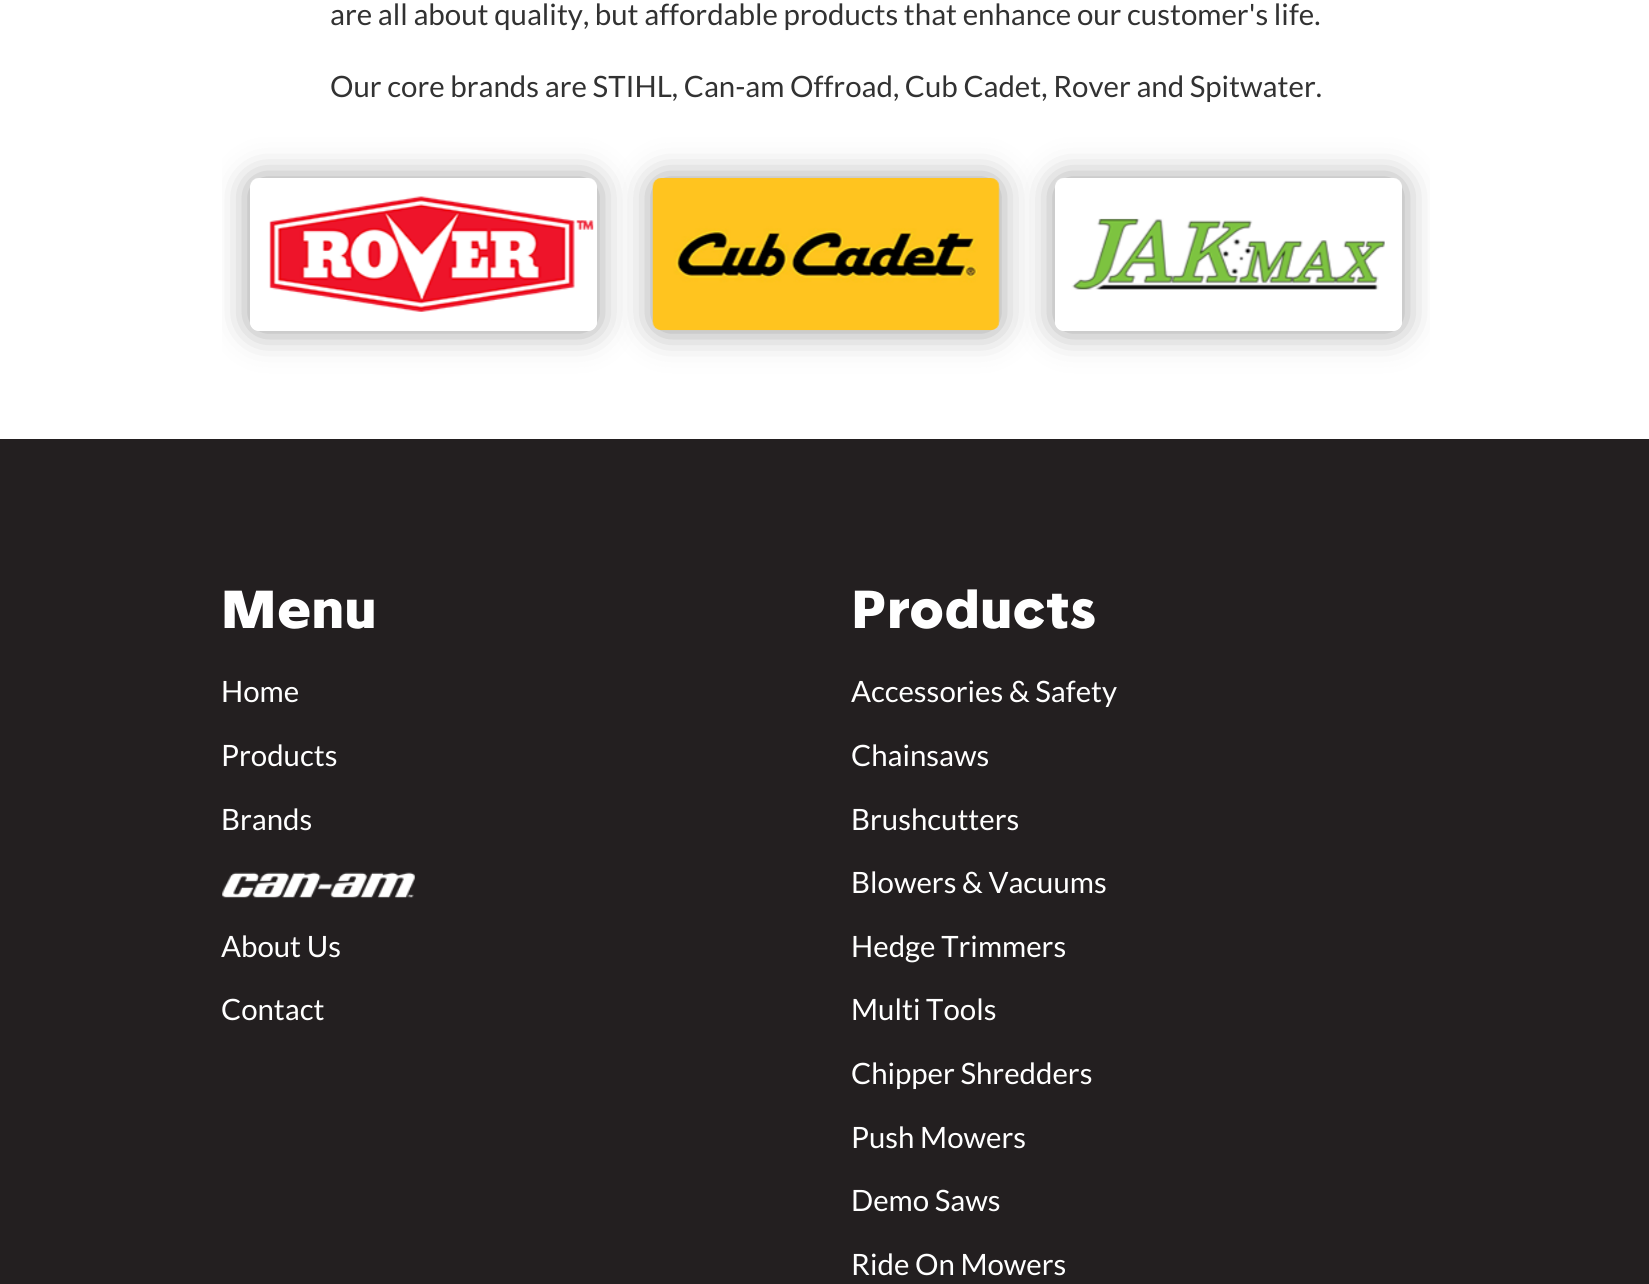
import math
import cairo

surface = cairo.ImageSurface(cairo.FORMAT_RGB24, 1649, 1284)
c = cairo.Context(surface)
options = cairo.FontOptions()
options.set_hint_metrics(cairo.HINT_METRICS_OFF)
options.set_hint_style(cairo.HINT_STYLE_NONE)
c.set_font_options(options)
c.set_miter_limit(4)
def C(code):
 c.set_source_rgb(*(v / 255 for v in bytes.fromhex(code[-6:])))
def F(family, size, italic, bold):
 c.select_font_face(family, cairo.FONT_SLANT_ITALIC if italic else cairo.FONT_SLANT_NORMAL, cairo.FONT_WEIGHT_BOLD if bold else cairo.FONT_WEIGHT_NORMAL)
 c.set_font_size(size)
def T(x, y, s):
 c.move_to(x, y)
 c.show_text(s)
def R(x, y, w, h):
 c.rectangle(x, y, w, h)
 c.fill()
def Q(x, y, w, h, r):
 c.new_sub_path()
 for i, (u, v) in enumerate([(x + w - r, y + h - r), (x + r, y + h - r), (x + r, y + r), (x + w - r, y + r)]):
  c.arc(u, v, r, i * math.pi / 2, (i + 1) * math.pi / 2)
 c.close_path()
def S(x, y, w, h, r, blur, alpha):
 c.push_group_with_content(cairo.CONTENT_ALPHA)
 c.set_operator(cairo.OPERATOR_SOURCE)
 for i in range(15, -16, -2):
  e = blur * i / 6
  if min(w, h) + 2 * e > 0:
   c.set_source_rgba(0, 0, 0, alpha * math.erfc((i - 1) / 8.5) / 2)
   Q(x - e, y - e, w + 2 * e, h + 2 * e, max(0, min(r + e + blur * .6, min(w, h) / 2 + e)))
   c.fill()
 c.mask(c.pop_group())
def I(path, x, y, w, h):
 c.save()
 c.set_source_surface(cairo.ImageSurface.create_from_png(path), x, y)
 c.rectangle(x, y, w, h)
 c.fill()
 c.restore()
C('ffffff')
c.paint()
F('Lato',29.4,0,0)
C('323232')
T(330,25,'are all about quality, but affordable products that enhance our customer\'s life.')
T(330,97,'Our core brands are STIHL, Can-am Offroad, Cub Cadet, Rover and Spitwater.')
c.save()
c.rectangle(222,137,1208,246)
c.clip()
c.set_fill_rule(cairo.FILL_RULE_EVEN_ODD)
c.new_path()
c.move_to(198,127)
c.line_to(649,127)
c.line_to(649,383)
c.line_to(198,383)
c.close_path()
c.move_to(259,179)
c.line_to(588,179)
c.curve_to(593,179,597,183,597,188)
c.line_to(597,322)
c.curve_to(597,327,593,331,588,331)
c.line_to(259,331)
c.curve_to(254,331,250,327,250,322)
c.line_to(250,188)
c.curve_to(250,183,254,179,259,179)
c.close_path()
c.clip()
C('000000')
S(250,179,347,152,9,17,.4)
c.restore()
I('1.png',250,178,347,147)
C('000000')
S(653,179,346,152,9,17,.4)
I('2.png',652,178,348,153)
c.save()
c.rectangle(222,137,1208,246)
c.clip()
c.set_fill_rule(cairo.FILL_RULE_EVEN_ODD)
c.new_path()
c.move_to(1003,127)
c.line_to(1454,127)
c.line_to(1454,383)
c.line_to(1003,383)
c.close_path()
c.move_to(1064,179)
c.line_to(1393,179)
c.curve_to(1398,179,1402,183,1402,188)
c.line_to(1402,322)
c.curve_to(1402,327,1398,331,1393,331)
c.line_to(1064,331)
c.curve_to(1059,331,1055,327,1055,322)
c.line_to(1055,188)
c.curve_to(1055,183,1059,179,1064,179)
c.close_path()
c.clip()
S(1055,179,347,152,9,17,.4)
c.restore()
I('3.png',1055,178,347,147)
C('231f20')
R(0,439,1649,845)
F('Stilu',51.5,0,1)
C('ffffff')
T(221,628,'Menu')
F('Lato',29.4,0,0)
T(221,702,'Home')
T(221,766,'Products')
T(221,830,'Brands')
I('4.png',222,872,193,26)
T(221,957,'About Us')
T(221,1020,'Contact')
F('Stilu',51.5,0,1)
T(851,628,'Products')
F('Lato',29.4,0,0)
T(851,702,'Accessories & Safety')
T(851,766,'Chainsaws')
T(851,830,'Brushcutters')
T(851,893,'Blowers & Vacuums')
T(851,957,'Hedge Trimmers')
T(851,1020,'Multi Tools')
T(851,1084,'Chipper Shredders')
T(851,1148,'Push Mowers')
T(851,1211,'Demo Saws')
T(851,1275,'Ride On Mowers')
surface.write_to_png('o.png')
